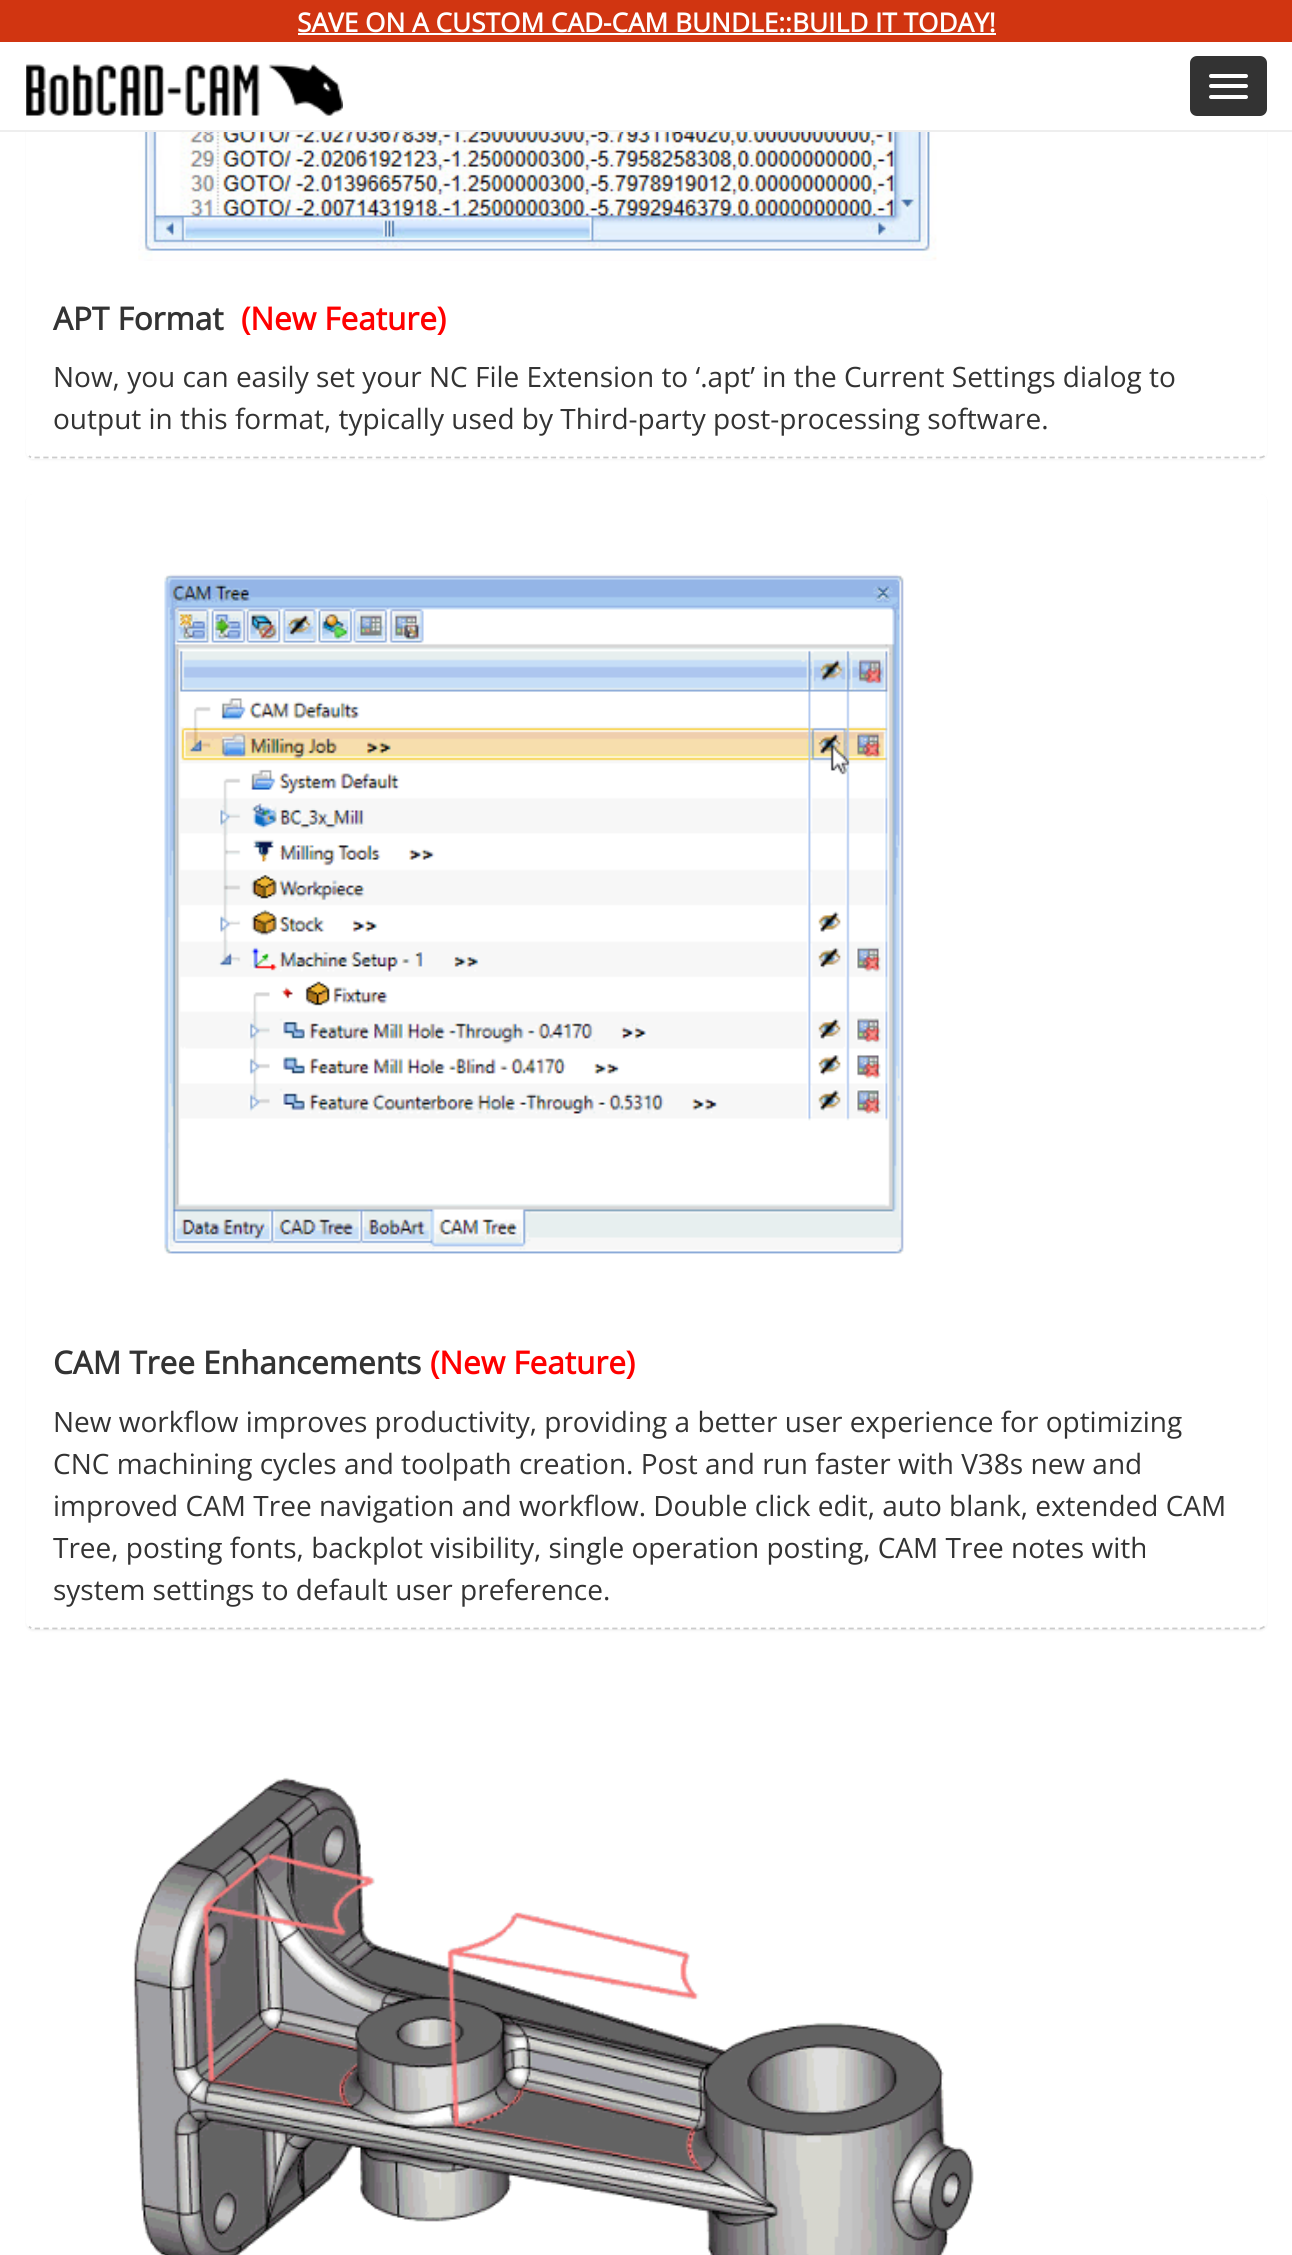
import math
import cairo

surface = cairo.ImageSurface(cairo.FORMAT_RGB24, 1292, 2255)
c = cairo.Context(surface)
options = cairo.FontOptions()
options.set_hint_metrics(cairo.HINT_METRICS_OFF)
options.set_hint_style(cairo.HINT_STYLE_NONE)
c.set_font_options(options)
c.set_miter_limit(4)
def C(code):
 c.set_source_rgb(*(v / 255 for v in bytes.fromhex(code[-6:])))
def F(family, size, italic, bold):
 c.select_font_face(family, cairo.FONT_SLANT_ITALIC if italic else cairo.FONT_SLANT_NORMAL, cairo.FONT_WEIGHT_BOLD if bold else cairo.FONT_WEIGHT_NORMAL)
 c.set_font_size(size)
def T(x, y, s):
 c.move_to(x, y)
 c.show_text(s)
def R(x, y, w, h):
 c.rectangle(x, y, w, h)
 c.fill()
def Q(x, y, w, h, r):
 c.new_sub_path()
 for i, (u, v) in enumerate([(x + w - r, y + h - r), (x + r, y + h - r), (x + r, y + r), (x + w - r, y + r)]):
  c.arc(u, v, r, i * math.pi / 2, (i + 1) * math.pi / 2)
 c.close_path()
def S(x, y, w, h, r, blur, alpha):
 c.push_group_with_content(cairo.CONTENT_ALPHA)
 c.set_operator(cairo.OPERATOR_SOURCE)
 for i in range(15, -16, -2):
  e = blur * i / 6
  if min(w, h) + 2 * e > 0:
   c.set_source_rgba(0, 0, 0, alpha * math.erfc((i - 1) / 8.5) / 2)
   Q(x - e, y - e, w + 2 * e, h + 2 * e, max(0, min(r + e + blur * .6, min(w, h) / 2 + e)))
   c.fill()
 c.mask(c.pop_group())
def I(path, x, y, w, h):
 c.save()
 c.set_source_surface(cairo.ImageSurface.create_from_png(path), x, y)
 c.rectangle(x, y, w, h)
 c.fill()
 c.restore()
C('ffffff')
c.paint()
C('000000')
S(26,-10,1241,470,7,1,.05)
C('ffffff')
Q(26,-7,1241,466,7)
c.fill()
R(25,42,1243,88)
C('eeeeee')
R(0,130,1292,2)
C('d13511')
R(0,0,1292,42)
F('Open Sans',26.25,0,1)
C('ffffff')
T(297,32,'SAVE ON A CUSTOM CAD-CAM BUNDLE::BUILD IT TODAY!')
R(298,33,698,2)
I('1.png',26,64,317,52)
C('333333')
Q(1191,57,75,58,6)
c.fill_preserve()
c.stroke()
C('ffffff')
Q(1209,74,39,4,2)
c.fill()
Q(1209,84,39,4,2)
c.fill()
Q(1209,95,39,4,2)
c.fill()
c.new_path()
c.move_to(1264.5,456)
c.curve_to(1263,457,1261.5,457.5,1260,457.5)
c.line_to(33,457.5)
c.curve_to(31.5,457.5,30,457,29,456)
C('cccccc')
c.set_line_width(1.8)
c.set_dash([5.25,3.5])
c.stroke()
I('2.png',138,132,799,129)
F('Open Sans',31.5,0,1)
C('333333')
T(53,330,'APT Format')
C('ff0000')
T(241,330,'(New Feature)')
F('Open Sans',28,0,0)
C('333333')
T(53,387,'Now, you can easily set your NC File Extension to ‘.apt’ in the Current Settings dialog to')
T(53,429,'output in this format, typically used by Third-party post-processing software.')
C('000000')
S(26,495,1241,1136,7,1,.05)
C('ffffff')
Q(26,494,1241,1135,7)
c.fill()
c.new_path()
c.move_to(1264.5,1626.5)
c.curve_to(1263,1627.5,1261.5,1628.5,1260,1628.5)
c.line_to(33,1628.5)
c.curve_to(31.5,1628.5,30,1627.5,29,1626.5)
C('cccccc')
c.stroke()
I('3.png',164,574,740,680)
F('Open Sans',31.5,0,1)
C('333333')
T(53,1374,'CAM Tree Enhancements')
C('ff0000')
T(430,1374,'(New Feature)')
F('Open Sans',28,0,0)
C('333333')
T(53,1432,'New workflow improves productivity, providing a better user experience for optimizing')
T(53,1474,'CNC machining cycles and toolpath creation. Post and run faster with V38s new and')
T(53,1516,'improved CAM Tree navigation and workflow. Double click edit, auto blank, extended CAM')
T(53,1558,'Tree, posting fonts, backplot visibility, single operation posting, CAM Tree notes with')
T(53,1600,'system settings to default user preference.')
I('4.png',133,1777,841,478)
surface.write_to_png('o.png')
